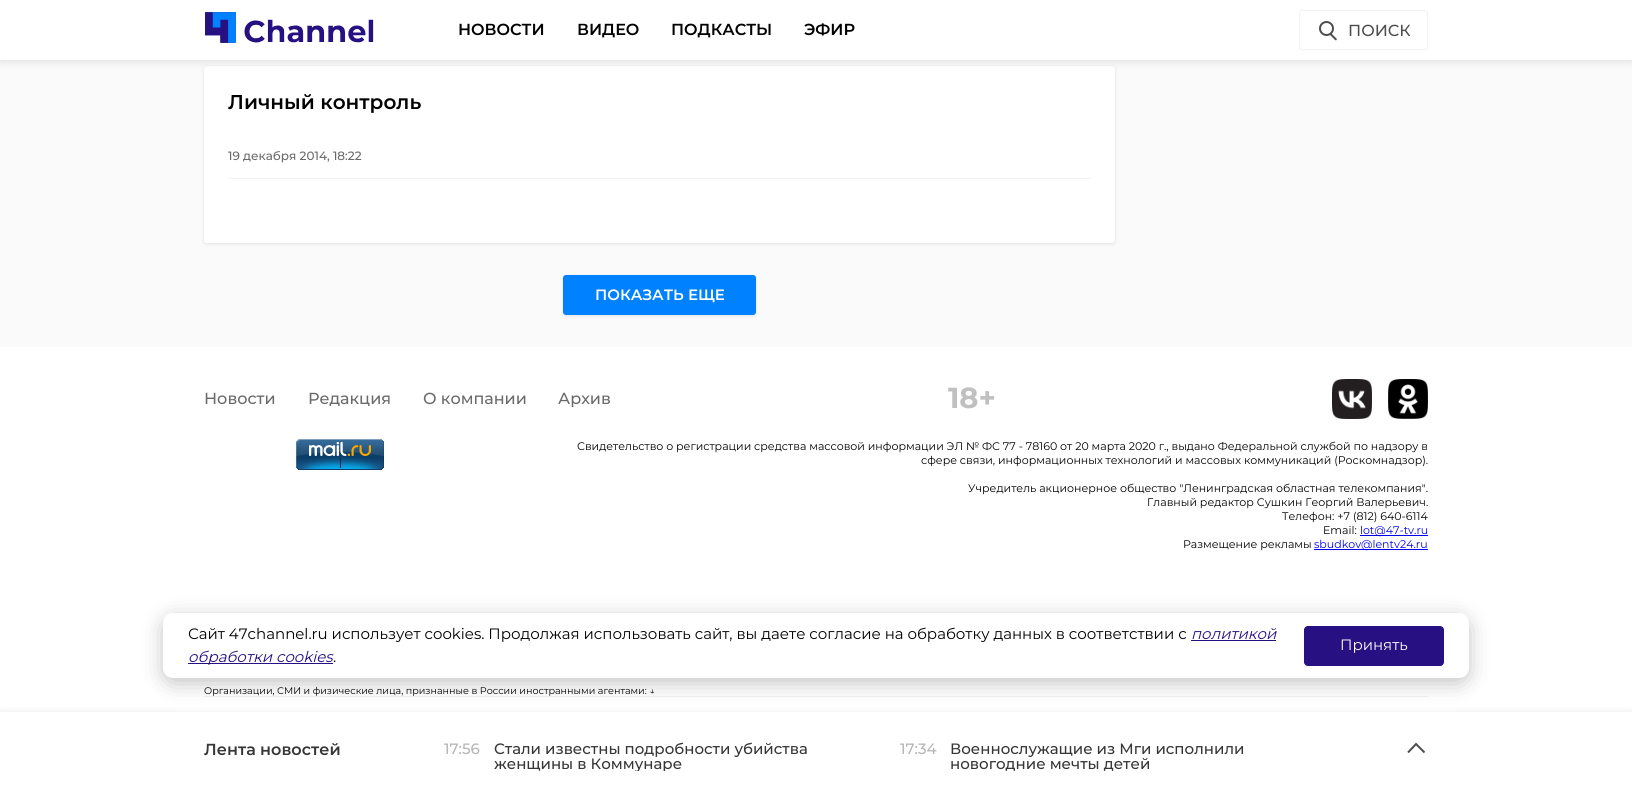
import math
import cairo

surface = cairo.ImageSurface(cairo.FORMAT_RGB24, 1632, 798)
c = cairo.Context(surface)
options = cairo.FontOptions()
options.set_hint_metrics(cairo.HINT_METRICS_OFF)
options.set_hint_style(cairo.HINT_STYLE_NONE)
c.set_font_options(options)
c.set_miter_limit(4)
def C(code):
 c.set_source_rgb(*(v / 255 for v in bytes.fromhex(code[-6:])))
def F(family, size, italic, bold):
 c.select_font_face(family, cairo.FONT_SLANT_ITALIC if italic else cairo.FONT_SLANT_NORMAL, cairo.FONT_WEIGHT_BOLD if bold else cairo.FONT_WEIGHT_NORMAL)
 c.set_font_size(size)
def T(x, y, s):
 c.move_to(x, y)
 c.show_text(s)
def R(x, y, w, h):
 c.rectangle(x, y, w, h)
 c.fill()
def Q(x, y, w, h, r):
 c.new_sub_path()
 for i, (u, v) in enumerate([(x + w - r, y + h - r), (x + r, y + h - r), (x + r, y + r), (x + w - r, y + r)]):
  c.arc(u, v, r, i * math.pi / 2, (i + 1) * math.pi / 2)
 c.close_path()
def S(x, y, w, h, r, blur, alpha):
 c.push_group_with_content(cairo.CONTENT_ALPHA)
 c.set_operator(cairo.OPERATOR_SOURCE)
 for i in range(15, -16, -2):
  e = blur * i / 6
  if min(w, h) + 2 * e > 0:
   c.set_source_rgba(0, 0, 0, alpha * math.erfc((i - 1) / 8.5) / 2)
   Q(x - e, y - e, w + 2 * e, h + 2 * e, max(0, min(r + e + blur * .6, min(w, h) / 2 + e)))
   c.fill()
 c.mask(c.pop_group())
def I(path, x, y, w, h):
 c.save()
 c.set_source_surface(cairo.ImageSurface.create_from_png(path), x, y)
 c.rectangle(x, y, w, h)
 c.fill()
 c.restore()
C('fafafa')
c.paint()
C('000000')
S(204,67,911,177,3,2,.1)
C('ffffff')
Q(204,66,911,177,3)
c.fill()
C('000000')
S(0,2,1632,60,0,4,.1)
C('ffffff')
R(0,0,1632,60)
I('1.png',205,12,169,31)
F('Montserrat SemiBold',16,0,0)
C('000000')
T(458,35,'НОВОСТИ')
T(577,35,'ВИДЕО')
T(671,35,'ПОДКАСТЫ')
T(804,35,'ЭФИР')
Q(1299.5,10.5,128,39,2.5)
C('f2f2f2')
c.set_line_width(1)
c.stroke()
I('2.png',1319,21,18,20)
F('Montserrat Medium',16,0,0)
C('4d4d4d')
T(1348,36,'ПОИСК')
F('Montserrat SemiBold',20,0,0)
C('000000')
T(228,109,'Личный контроль')
F('Montserrat Medium',12,0,0)
C('6a6a6a')
T(228,160,'19 декабря 2014, 18:22')
C('f4f4f4')
R(228,178,863,1)
C('000000')
S(563,276,193,40,3,1.5,.1)
C('0081ff')
Q(563,275,193,40,3)
c.fill()
F('Montserrat SemiBold',15,0,0)
C('ffffff')
T(595,300,'ПОКАЗАТЬ ЕЩЕ')
R(0,347,1632,365)
F('Montserrat Medium',16,0,0)
C('6a6a6a')
T(204,404,'Новости')
T(308,404,'Редакция')
T(423,404,'О компании')
T(558,404,'Архив')
F('Montserrat',29,0,1)
C('c0c0c0')
T(948,408,'18+')
I('3.png',1332,379,40,40)
I('4.png',1388,379,40,40)
I('5.png',296,439,88,31)
F('Montserrat',11,0,0)
C('000000')
T(577,450,'Свидетельство о регистрации средства массовой информации ЭЛ № ФС 77 - 78160 от 20 марта 2020 г., выдано Федеральной службой по надзору в')
T(921,464,'сфере связи, информационных технологий и массовых коммуникаций (Роскомнадзор).')
T(968,492,'Учредитель акционерное общество "Ленинградская областная телекомпания".')
T(1147,506,'Главный редактор Сушкин Георгий Валерьевич.')
T(1282,520,'Телефон: +7 (812) 640-6114')
T(1323,534,'Email:')
C('0000ee')
R(1360,535,68,1)
T(1360,534,'lot@47-tv.ru')
C('000000')
T(1183,548,'Размещение рекламы')
C('0000ee')
R(1314,549,114,1)
T(1314,548,'sbudkov@lentv24.ru')
F('Montserrat',9.6,0,0)
C('000000')
T(204,694,'Организации, СМИ и физические лица, признанные в России иностранными агентами: ↓')
C('f3f3f3')
R(204,696,1224,1)
C('000000')
S(166,621,1300,59,7,11.5,.3)
C('ffffff')
Q(163,613,1306,65,10)
c.fill()
F('Montserrat',15,0,0)
C('000000')
T(188,639,'Сайт 47channel.ru использует cookies. Продолжая использовать сайт, вы даете согласие на обработку данных в соответствии с')
F('Montserrat',15,1,0)
C('271081')
T(1191,639,'политикой')
R(1191,640,85,1)
R(188,663,145,1)
T(188,662,'обработки cookies')
F('Montserrat',15,0,0)
C('000000')
T(333,662,'.')
C('271081')
Q(1304.5,626.5,139,39,3.5)
c.fill_preserve()
c.stroke()
C('ffffff')
T(1340,650,'Принять')
C('000000')
S(0,713,1632,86,0,4,.1)
C('ffffff')
R(0,712,1632,86)
F('Montserrat SemiBold',16,0,0)
C('363636')
T(204,755,'Лента новостей')
c.new_path()
c.move_to(1424.5,752.5)
c.line_to(1416,744)
c.line_to(1408,752.5)
C('4d4d4d')
c.set_line_width(2)
c.stroke()
F('Montserrat Medium',15,0,0)
C('b6b6b6')
T(444,754,'17:56')
C('363636')
T(494,754,'Стали известны подробности убийства')
c.save()
c.rectangle(494,741,334,30)
c.clip()
T(494,769,'женщины в Коммунаре')
c.restore()
C('b6b6b6')
T(900,754,'17:34')
C('363636')
T(950,754,'Военнослужащие из Мги исполнили')
T(950,769,'новогодние мечты детей')
surface.write_to_png('o.png')
